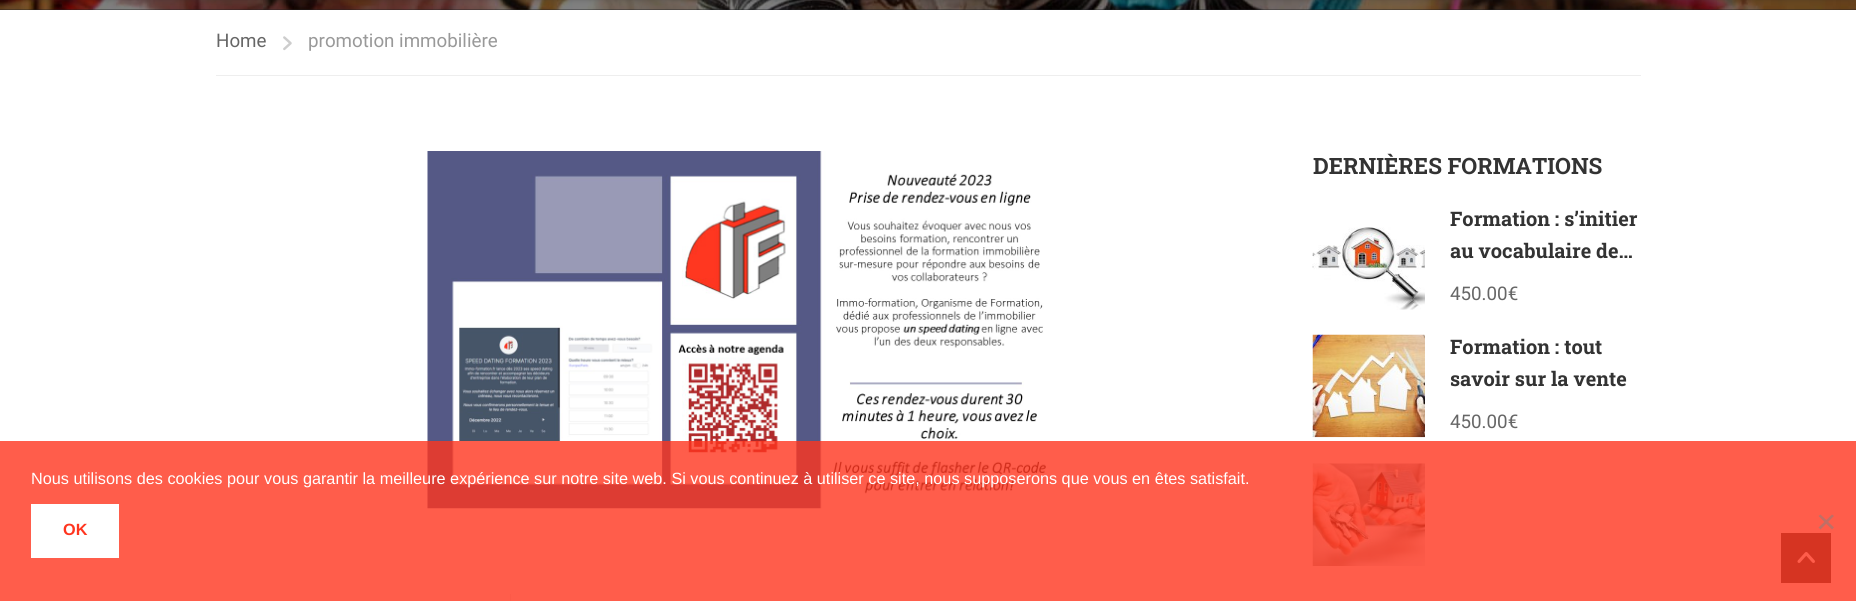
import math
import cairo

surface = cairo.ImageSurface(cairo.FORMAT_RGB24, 1856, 601)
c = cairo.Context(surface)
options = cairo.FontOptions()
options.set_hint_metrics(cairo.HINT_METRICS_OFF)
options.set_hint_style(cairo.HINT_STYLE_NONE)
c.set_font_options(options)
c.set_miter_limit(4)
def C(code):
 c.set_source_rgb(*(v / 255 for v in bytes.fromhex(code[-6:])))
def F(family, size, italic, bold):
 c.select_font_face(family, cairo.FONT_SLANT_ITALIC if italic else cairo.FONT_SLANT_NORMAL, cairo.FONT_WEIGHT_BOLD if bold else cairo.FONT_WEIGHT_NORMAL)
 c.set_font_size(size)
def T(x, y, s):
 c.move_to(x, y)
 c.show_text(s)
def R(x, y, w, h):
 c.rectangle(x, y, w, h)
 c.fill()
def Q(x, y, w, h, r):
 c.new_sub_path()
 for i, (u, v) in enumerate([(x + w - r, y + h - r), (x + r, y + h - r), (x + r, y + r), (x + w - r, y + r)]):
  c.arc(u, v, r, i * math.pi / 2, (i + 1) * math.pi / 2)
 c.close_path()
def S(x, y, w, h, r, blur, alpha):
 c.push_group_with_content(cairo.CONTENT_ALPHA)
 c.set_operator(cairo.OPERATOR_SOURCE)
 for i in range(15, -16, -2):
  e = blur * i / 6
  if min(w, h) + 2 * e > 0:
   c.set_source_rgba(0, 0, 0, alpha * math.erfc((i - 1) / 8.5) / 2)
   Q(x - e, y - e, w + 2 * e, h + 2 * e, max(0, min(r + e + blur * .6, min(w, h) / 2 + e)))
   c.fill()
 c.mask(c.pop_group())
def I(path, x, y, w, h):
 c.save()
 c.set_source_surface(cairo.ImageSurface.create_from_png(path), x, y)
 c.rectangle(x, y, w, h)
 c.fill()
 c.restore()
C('ffffff')
c.paint()
C('1c1f22')
R(0,9,1856,1)
I('1.png',0,0,1856,10)
C('2a2a2a')
S(3,-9,1851,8,0,3,.4)
C('eeeeee')
R(216,75,1425,1)
F('Roboto',18.75,0,0)
C('666666')
T(216,47,'Home')
I('2.png',283,36,9,15)
C('999999')
T(308,47,'promotion immobilière')
I('3.png',427,151,619,358)
C('eeeeee')
R(510,594,1,7)
F('Roboto Slab',22.5,0,1)
C('333333')
T(1313,174,'DERNIÈRES FORMATIONS')
I('4.png',1312,227,113,83)
F('Roboto Slab',20,0,1)
T(1450,226,'Formation : s’initier')
T(1450,258,'au vocabulaire de…')
F('Roboto',18.75,0,0)
C('666666')
T(1450,300,'450.00€')
I('5.png',1312,334,113,104)
F('Roboto Slab',20,0,1)
C('333333')
T(1450,354,'Formation : tout')
T(1450,386,'savoir sur la vente')
F('Roboto',18.75,0,0)
C('666666')
T(1450,428,'450.00€')
I('6.png',1312,463,113,103)
C('333333')
R(1781,533,50,50)
I('7.png',1797,552,18,11)
c.set_source_rgba(1,0.208,0.122,0.8)
R(0,441,1856,160)
F('Liberation Sans',16.25,0,0)
C('ffffff')
T(31,484,'Nous utilisons des cookies pour vous garantir la meilleure expérience sur notre site web. Si vous continuez à utiliser ce site, nous supposerons que vous en êtes satisfait.')
R(31,504,88,54)
F('Liberation Sans',16.25,0,1)
C('ff351f')
T(63,535,'OK')
C('c06f66')
c.new_path()
c.move_to(1832,514.5)
c.line_to(1834,516)
c.line_to(1820.5,529.5)
c.line_to(1818.5,527.5)
c.close_path()
c.fill()
c.new_path()
c.move_to(1818.5,516)
c.line_to(1820.5,514.5)
c.line_to(1834,527.5)
c.line_to(1832,529.5)
c.close_path()
c.fill()
surface.write_to_png('o.png')
